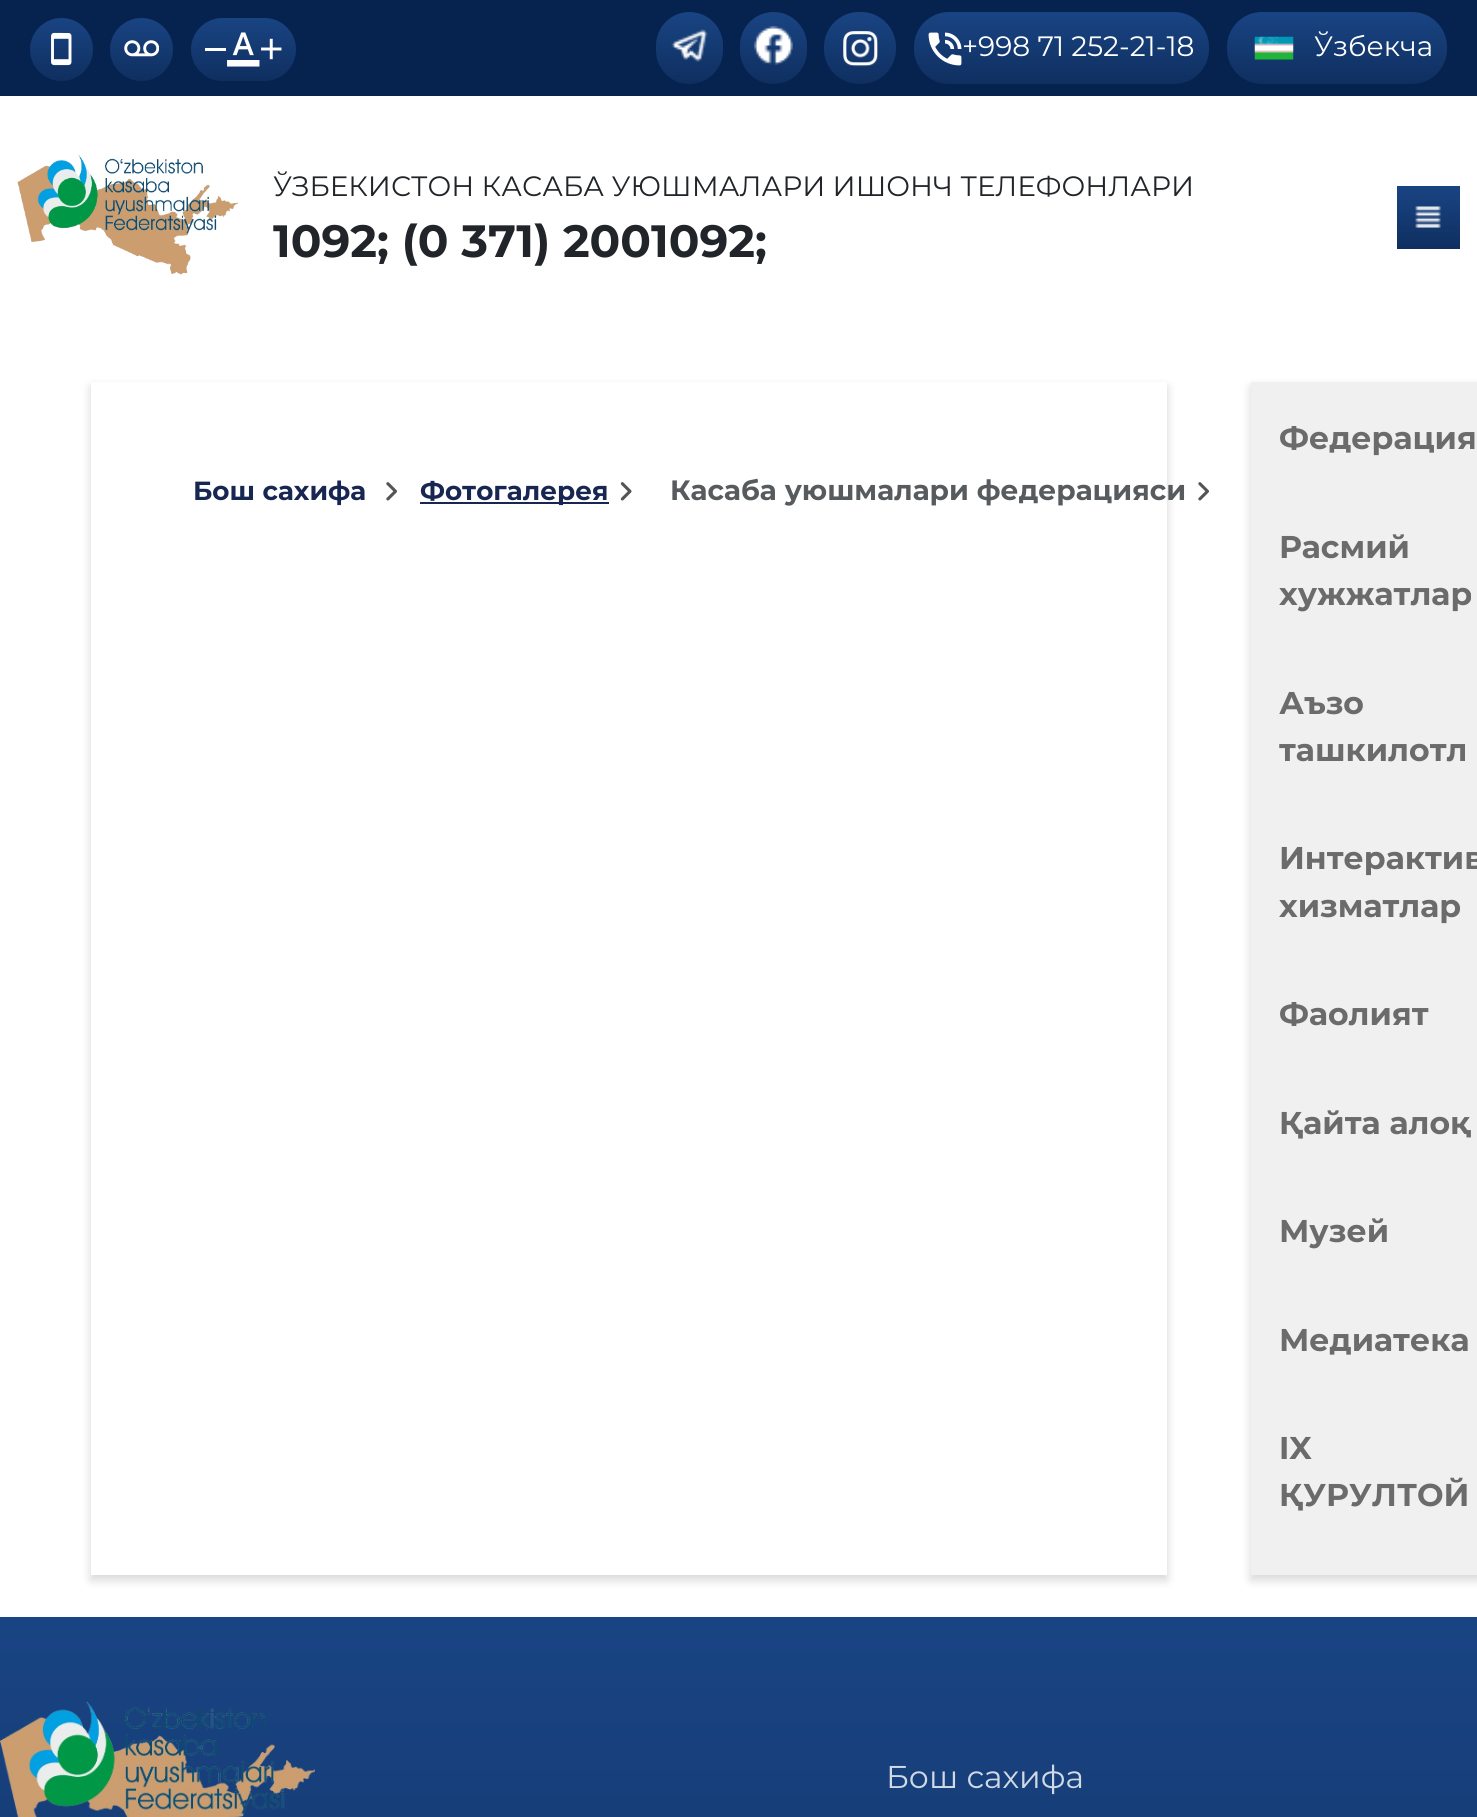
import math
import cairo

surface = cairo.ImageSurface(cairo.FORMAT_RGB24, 1477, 1817)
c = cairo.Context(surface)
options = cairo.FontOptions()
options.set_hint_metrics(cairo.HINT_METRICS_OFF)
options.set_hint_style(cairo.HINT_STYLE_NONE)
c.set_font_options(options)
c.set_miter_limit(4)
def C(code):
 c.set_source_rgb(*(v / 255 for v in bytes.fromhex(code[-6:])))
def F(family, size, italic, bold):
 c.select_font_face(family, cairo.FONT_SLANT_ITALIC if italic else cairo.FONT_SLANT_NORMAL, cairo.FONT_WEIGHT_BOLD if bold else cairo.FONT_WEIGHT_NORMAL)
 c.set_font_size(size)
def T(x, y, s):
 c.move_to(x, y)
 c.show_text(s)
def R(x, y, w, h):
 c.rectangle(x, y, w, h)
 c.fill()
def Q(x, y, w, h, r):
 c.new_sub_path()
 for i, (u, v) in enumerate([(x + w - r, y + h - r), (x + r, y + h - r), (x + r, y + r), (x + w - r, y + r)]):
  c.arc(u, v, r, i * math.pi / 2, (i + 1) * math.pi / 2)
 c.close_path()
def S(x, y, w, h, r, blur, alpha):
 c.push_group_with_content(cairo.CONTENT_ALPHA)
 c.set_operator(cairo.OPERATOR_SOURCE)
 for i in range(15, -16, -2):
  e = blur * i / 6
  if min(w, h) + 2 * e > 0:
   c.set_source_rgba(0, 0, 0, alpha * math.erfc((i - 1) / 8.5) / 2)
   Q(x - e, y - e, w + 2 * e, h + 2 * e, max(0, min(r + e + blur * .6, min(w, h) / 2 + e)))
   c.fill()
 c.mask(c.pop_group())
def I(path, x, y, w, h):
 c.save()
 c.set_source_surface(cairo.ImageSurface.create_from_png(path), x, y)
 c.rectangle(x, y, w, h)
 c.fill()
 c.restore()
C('ffffff')
c.paint()
C('06234f')
R(0,0,1477,96)
gradient = cairo.LinearGradient(61,17,61,81)
gradient.add_color_stop_rgba(0,0.098,0.267,0.514,1)
gradient.add_color_stop_rgba(1,0.059,0.184,0.376,1)
c.set_source(gradient)
c.arc(61.5,49.5,31.5,0,2 * math.pi)
c.fill()
I('1.png',51,32,21,34)
gradient = cairo.LinearGradient(142,17,142,81)
gradient.add_color_stop_rgba(0,0.098,0.267,0.514,1)
gradient.add_color_stop_rgba(1,0.059,0.184,0.376,1)
c.set_source(gradient)
c.arc(141.5,49.5,31.5,0,2 * math.pi)
c.fill()
I('2.png',124,40,35,17)
gradient = cairo.LinearGradient(243,17,243,81)
gradient.add_color_stop_rgba(0,0.098,0.267,0.514,1)
gradient.add_color_stop_rgba(1,0.059,0.184,0.376,1)
c.set_source(gradient)
Q(191,18,105,63,31.5)
c.fill()
C('ffffff')
R(205,48,21,3)
I('3.png',227,32,33,35)
I('4.png',261,38,21,22)
gradient = cairo.LinearGradient(690,12,690,84)
gradient.add_color_stop_rgba(0,0.098,0.267,0.514,1)
gradient.add_color_stop_rgba(1,0.059,0.184,0.376,1)
c.set_source(gradient)
Q(656,12,67,72,33.5)
c.fill()
I('5.png',671,29,37,33)
gradient = cairo.LinearGradient(774,12,774,84)
gradient.add_color_stop_rgba(0,0.098,0.267,0.514,1)
gradient.add_color_stop_rgba(1,0.059,0.184,0.376,1)
c.set_source(gradient)
Q(740,12,67,72,33.5)
c.fill()
I('6.png',754,26,39,39)
gradient = cairo.LinearGradient(860,12,860,84)
gradient.add_color_stop_rgba(0,0.098,0.267,0.514,1)
gradient.add_color_stop_rgba(1,0.059,0.184,0.376,1)
c.set_source(gradient)
Q(824,12,72,72,35)
c.fill()
I('7.png',843,31,35,36)
gradient = cairo.LinearGradient(1061,12,1061,84)
gradient.add_color_stop_rgba(0,0.098,0.267,0.514,1)
gradient.add_color_stop_rgba(1,0.059,0.184,0.376,1)
c.set_source(gradient)
Q(914,12,295,72,35)
c.fill()
I('8.png',928,32,34,34)
F('Montserrat',28,0,0)
C('ffffff')
T(962,56,'+998 71 252-21-18')
gradient = cairo.LinearGradient(1337,12,1337,84)
gradient.add_color_stop_rgba(0,0.098,0.267,0.514,1)
gradient.add_color_stop_rgba(1,0.059,0.184,0.376,1)
c.set_source(gradient)
Q(1227,12,220,72,35)
c.fill()
I('9.png',1254,36,40,24)
C('ffffff')
T(1314,56,'Ўзбекча')
I('10.png',17,154,221,121)
C('212529')
T(273,196,'ЎЗБЕКИСТОН КАСАБА УЮШМАЛАРИ ИШОНЧ ТЕЛЕФОНЛАРИ')
F('Montserrat',45.25,0,1)
T(273,257,'1092; (0 371) 2001092;')
gradient = cairo.LinearGradient(1428,186,1428,249)
gradient.add_color_stop_rgba(0,0.098,0.267,0.514,1)
gradient.add_color_stop_rgba(1,0.059,0.184,0.376,1)
c.set_source(gradient)
R(1397,186,63,63)
I('11.png',1415,206,26,22)
c.save()
c.set_fill_rule(cairo.FILL_RULE_EVEN_ODD)
c.new_path()
c.move_to(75,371)
c.line_to(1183,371)
c.line_to(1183,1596)
c.line_to(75,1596)
c.close_path()
c.move_to(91,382)
c.line_to(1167,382)
c.line_to(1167,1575)
c.line_to(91,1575)
c.close_path()
c.clip()
C('000000')
S(91,387,1076,1193,0,5,.16)
c.restore()
F('Montserrat',26.25,0,1)
C('182752')
T(193,500,'Бош сахифа')
I('12.png',386,482,11,19)
R(420,502,189,2)
T(420,500,'Фотогалерея')
I('13.png',620,482,12,19)
F('Montserrat',28,0,1)
C('585b5e')
T(670,500,'Касаба уюшмалари федерацияси')
I('12.png',1198,482,11,19)
C('000000')
S(1251,387,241,1193,0,5,.16)
C('f0f0f0')
R(1251,382,226,1193)
F('Montserrat',31.5,0,1)
C('6b6b6b')
T(1279,449,'Федерация')
T(1279,558,'Расмий')
T(1279,605,'хужжатлар')
T(1279,714,'Аъзо')
T(1279,761,'ташкилотл')
T(1279,869,'Интерактив')
T(1279,917,'хизматлар')
T(1279,1025,'Фаолият')
T(1279,1134,'Қайта алоқ')
T(1279,1242,'Музей')
T(1279,1351,'Медиатека')
T(1279,1459,'IX')
T(1279,1506,'ҚУРУЛТОЙ')
gradient = cairo.LinearGradient(739,1617,739,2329)
gradient.add_color_stop_rgba(0,0.098,0.267,0.514,1)
gradient.add_color_stop_rgba(1,0.059,0.184,0.376,1)
c.set_source(gradient)
R(0,1617,1477,200)
I('14.png',0,1701,315,116)
F('Montserrat',31.5,0,0)
C('d1d9e5')
T(886,1788,'Бош сахифа')
surface.write_to_png('o.png')
